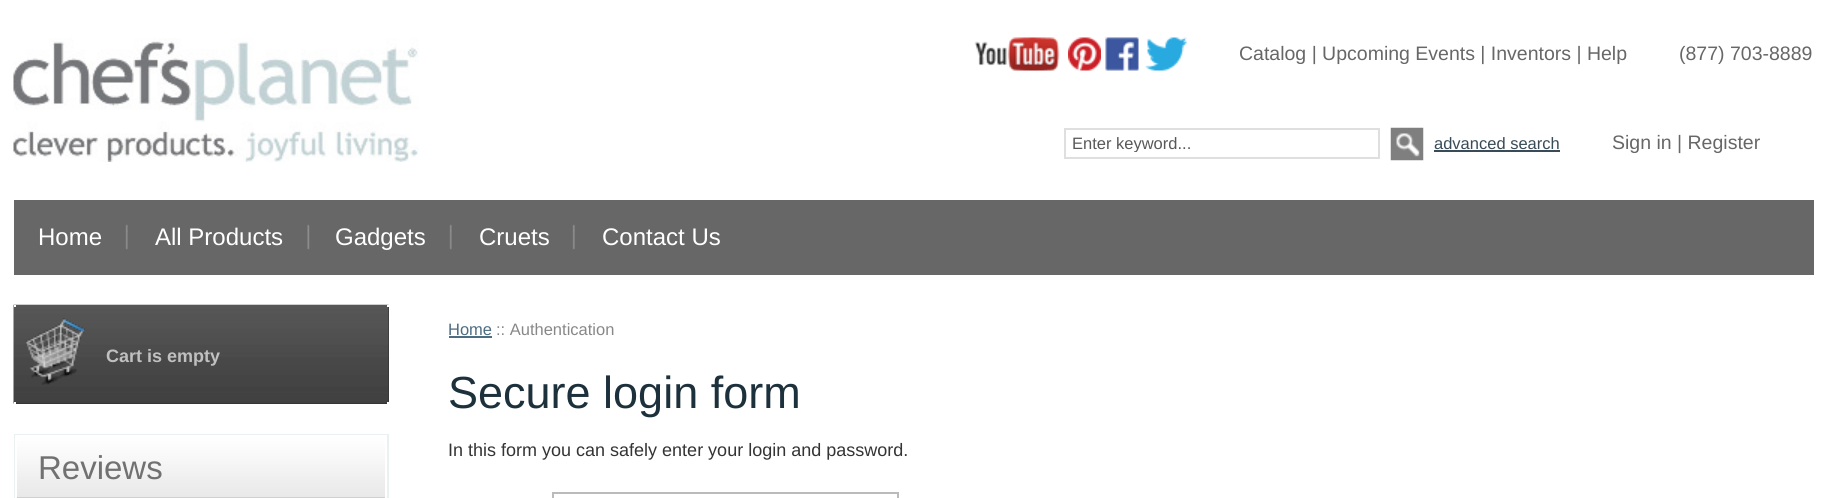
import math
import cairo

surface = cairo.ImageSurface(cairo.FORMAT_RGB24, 1825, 498)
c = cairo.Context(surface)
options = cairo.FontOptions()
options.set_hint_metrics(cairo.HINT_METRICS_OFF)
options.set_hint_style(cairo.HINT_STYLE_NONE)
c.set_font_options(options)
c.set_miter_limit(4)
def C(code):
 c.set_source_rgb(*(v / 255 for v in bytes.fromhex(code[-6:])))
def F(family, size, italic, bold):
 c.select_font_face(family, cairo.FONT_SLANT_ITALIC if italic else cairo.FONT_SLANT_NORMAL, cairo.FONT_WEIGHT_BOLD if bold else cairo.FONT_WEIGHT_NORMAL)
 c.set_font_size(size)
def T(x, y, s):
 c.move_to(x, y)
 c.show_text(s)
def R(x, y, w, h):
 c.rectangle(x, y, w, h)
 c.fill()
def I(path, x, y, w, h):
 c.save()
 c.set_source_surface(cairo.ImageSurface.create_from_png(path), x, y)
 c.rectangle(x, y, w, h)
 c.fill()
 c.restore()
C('ffffff')
c.paint()
I('1.png',13,38,406,124)
I('2.png',974,37,86,34)
I('3.png',1068,37,33,34)
I('4.png',1105,37,34,34)
I('5.png',1145,37,42,34)
F('Liberation Sans',19.5,0,0)
C('676767')
T(1239,60,'Catalog | Upcoming Events | Inventors | Help')
T(1679,60,'(877) 703-8889')
c.rectangle(1065,129,314,29)
C('dfdfdf')
c.stroke()
c.save()
c.rectangle(1073,134,298,18)
c.clip()
F('Liberation Sans',16.5,0,0)
C('585858')
T(1072,149,'Enter keyword...')
c.restore()
I('6.png',1390,127,34,34)
F('Liberation Sans',16.5,0,0)
C('394b57')
T(1434,149,'advanced search')
R(1434,150,126,2)
F('Liberation Sans',19.5,0,0)
C('676767')
T(1612,149,'Sign in | Register')
R(14,200,1800,75)
I('7.png',125,224,3,26)
F('Liberation Sans',24,0,0)
C('ffffff')
T(38,245,'Home')
I('8.png',307,224,3,26)
T(155,245,'All Products')
I('7.png',449,224,3,26)
T(335,245,'Gadgets')
I('9.png',572,224,3,26)
T(479,245,'Cruets')
T(602,245,'Contact Us')
C('2d2d2d')
R(16,307,373,97)
I('10.png',13,304,376,100)
C('ffffff')
R(14,305,2,2)
R(387,305,2,2)
I('11.png',25,318,60,67)
F('Liberation Sans',18,0,1)
C('c0c0c0')
T(106,362,'Cart is empty')
C('ffffff')
R(14,402,2,2)
R(387,402,2,2)
C('ebf0f1')
R(14,434,375,64)
I('12.png',17,437,368,61)
c.rectangle(16,436,370,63)
C('ffffff')
c.stroke()
F('Liberation Sans',33,0,0)
C('717171')
T(38,479,'Reviews')
F('Liberation Sans',16.5,0,0)
C('4c6d82')
T(448,335,'Home')
R(449,336,43,2)
C('888888')
T(496,335,':: Authentication')
F('Liberation Sans',45,0,0)
C('1d313d')
T(448,408,'Secure login form')
F('Liberation Sans',18,0,0)
C('343434')
T(448,456,'In this form you can safely enter your login and password.')
c.rectangle(553,493,345,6)
C('bbbbbb')
c.stroke()
surface.write_to_png('o.png')
